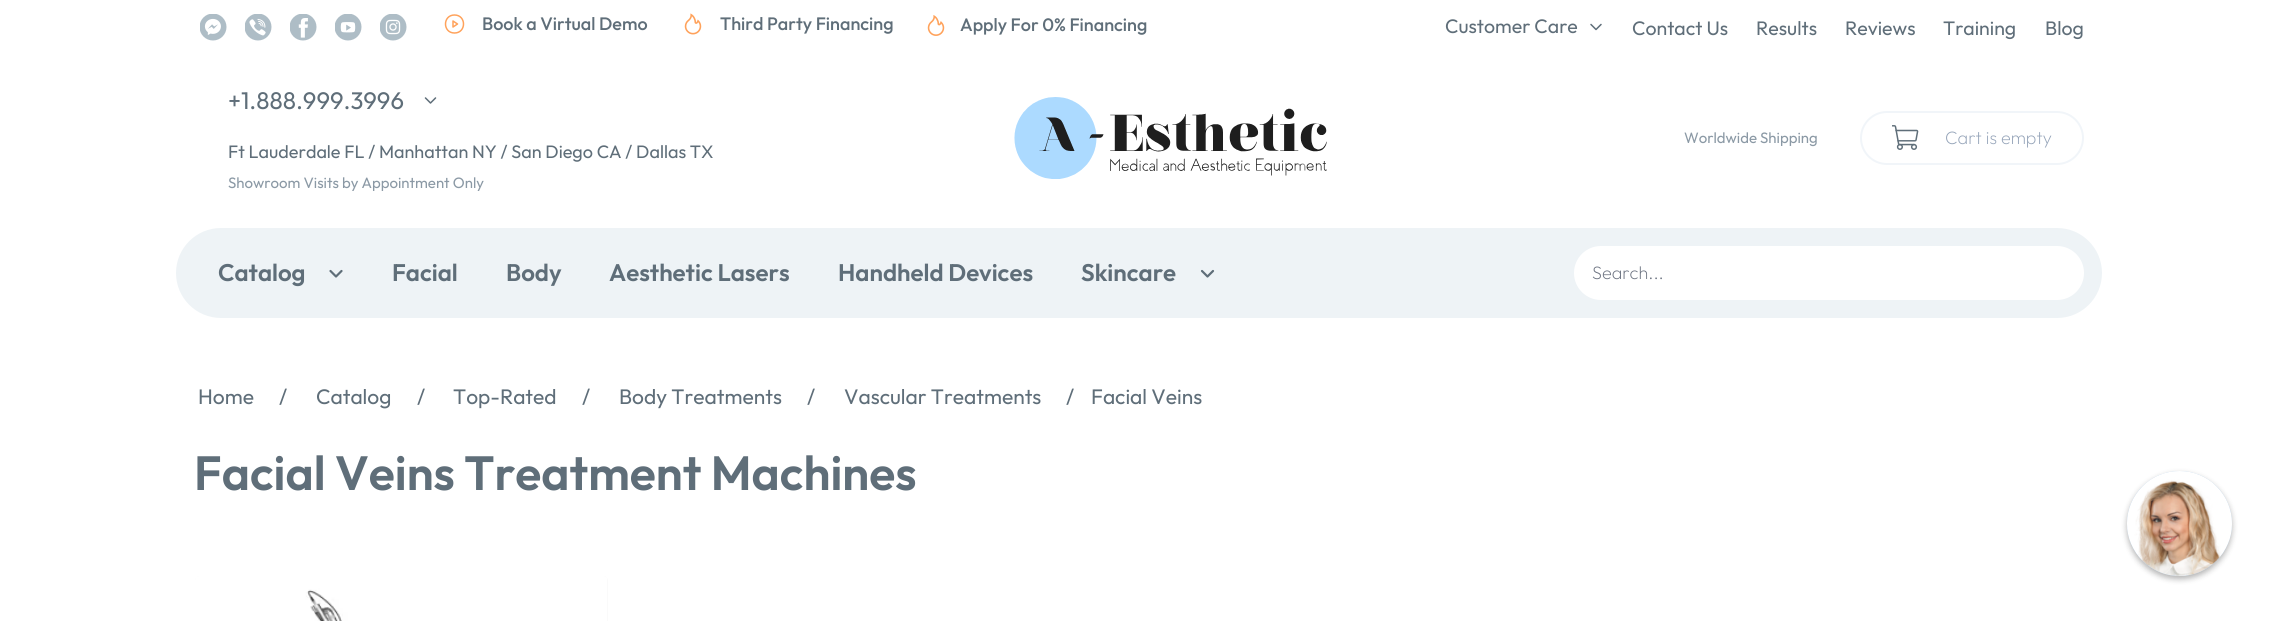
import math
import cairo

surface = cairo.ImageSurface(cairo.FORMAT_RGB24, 2277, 621)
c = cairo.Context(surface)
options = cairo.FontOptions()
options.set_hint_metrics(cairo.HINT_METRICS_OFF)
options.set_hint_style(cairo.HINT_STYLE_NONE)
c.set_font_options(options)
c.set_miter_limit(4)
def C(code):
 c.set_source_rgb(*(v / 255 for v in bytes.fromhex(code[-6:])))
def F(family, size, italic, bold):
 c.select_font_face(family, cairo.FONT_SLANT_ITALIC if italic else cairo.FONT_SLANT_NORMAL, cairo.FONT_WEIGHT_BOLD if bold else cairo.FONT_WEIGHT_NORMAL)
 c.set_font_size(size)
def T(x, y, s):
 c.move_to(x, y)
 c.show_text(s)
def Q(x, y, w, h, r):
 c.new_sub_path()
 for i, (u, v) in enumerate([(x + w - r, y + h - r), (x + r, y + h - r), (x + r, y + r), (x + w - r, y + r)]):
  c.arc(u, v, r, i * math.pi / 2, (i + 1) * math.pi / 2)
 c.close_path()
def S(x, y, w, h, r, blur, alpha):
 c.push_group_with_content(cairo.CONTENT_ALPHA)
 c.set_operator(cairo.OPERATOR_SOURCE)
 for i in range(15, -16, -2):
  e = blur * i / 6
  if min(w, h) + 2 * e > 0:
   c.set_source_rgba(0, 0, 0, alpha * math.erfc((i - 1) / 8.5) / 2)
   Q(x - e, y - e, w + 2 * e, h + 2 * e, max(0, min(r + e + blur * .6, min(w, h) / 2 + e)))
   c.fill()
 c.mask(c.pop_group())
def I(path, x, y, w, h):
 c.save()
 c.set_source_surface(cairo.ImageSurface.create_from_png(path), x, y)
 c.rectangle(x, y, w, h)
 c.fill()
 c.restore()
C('ffffff')
c.paint()
I('1.png',200,14,27,27)
I('2.png',245,14,27,27)
I('3.png',290,14,27,27)
I('4.png',335,14,27,27)
I('5.png',380,14,27,27)
c.new_path()
c.move_to(454.5,33)
c.curve_to(466.5,33,466.5,15,454.5,15)
c.curve_to(442.5,15,442.5,33,454.5,33)
c.close_path()
c.move_to(457.5,24)
c.line_to(453,21)
c.line_to(453,27)
c.close_path()
C('ffa25b')
c.set_line_width(1.5)
c.set_line_cap(cairo.LINE_CAP_ROUND)
c.set_line_join(cairo.LINE_JOIN_ROUND)
c.stroke()
F('Outfit Medium',18,0,0)
C('5f6e79')
T(482,30,'Book a Virtual Demo')
I('6.png',684,13,18,22)
T(720,30,'Third Party Financing')
I('7.png',927,15,18,21)
T(960,31,'Apply For 0% Financing')
F('Outfit',19.5,0,0)
T(1445,33,'Customer Care')
c.new_path()
c.move_to(1601,24.5)
c.line_to(1596,29.5)
c.line_to(1591,24.5)
c.stroke()
T(1632,35,'Contact Us')
T(1756,35,'Results')
T(1845,35,'Reviews')
T(1943,35,'Training')
T(2045,35,'Blog')
F('Outfit',24,0,0)
T(228,109,'+1.888.999.3996')
c.new_path()
c.move_to(435.5,98)
c.line_to(430.5,103)
c.line_to(425.5,98)
c.stroke()
F('Outfit',18,0,0)
T(228,158,'Ft Lauderdale FL / Manhattan NY / San Diego CA / Dallas TX')
F('Outfit',15,0,0)
C('8b99a5')
T(228,188,'Showroom Visits by Appointment Only')
I('8.png',1014,97,313,82)
T(1684,143,'Worldwide Shipping')
Q(1861,112,222,52,26)
C('f1f5f9')
c.set_line_width(2)
c.set_line_cap(cairo.LINE_CAP_BUTT)
c.set_line_join(cairo.LINE_JOIN_MITER)
c.stroke()
I('9.png',1892,125,27,25)
F('Outfit ExtraLight',18,0,0)
C('94a3b8')
T(1945,144,'Cart is empty')
C('eef3f6')
Q(176,228,1926,90,45)
c.fill()
F('Outfit SemiBold',24,0,0)
C('5f6e79')
T(218,281,'Catalog')
c.new_path()
c.move_to(341.5,271)
c.line_to(336,276.5)
c.line_to(330.5,271)
c.set_line_width(2.2)
c.set_line_cap(cairo.LINE_CAP_ROUND)
c.set_line_join(cairo.LINE_JOIN_ROUND)
c.stroke()
T(392,281,'Facial')
T(506,281,'Body')
T(609,281,'Aesthetic Lasers')
T(838,281,'Handheld Devices')
T(1081,281,'Skincare')
c.new_path()
c.move_to(1213,271)
c.line_to(1207.5,276.5)
c.line_to(1202,271)
c.stroke()
C('ffffff')
Q(1574,246,510,54,27)
c.fill()
F('Outfit ExtraLight',18,0,0)
C('6b7280')
T(1592,279,'Search...')
F('Outfit',21,0,0)
C('5f6e79')
T(198,404,'Home')
T(279,404,'/')
T(316,404,'Catalog')
T(417,404,'/')
T(453,404,'Top-Rated')
T(582,404,'/')
T(619,404,'Body Treatments')
T(807,404,'/')
T(844,404,'Vascular Treatments')
T(1066,404,'/')
T(1091,404,'Facial Veins')
F('Outfit SemiBold',48,0,0)
T(194,490,'Facial Veins Treatment Machines')
C('fafafa')
c.new_path()
c.move_to(200,576)
c.line_to(603,576)
c.curve_to(606,576,608,578,608,581)
c.line_to(608,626)
c.line_to(195,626)
c.line_to(195,581)
c.curve_to(195,578,197,576,200,576)
c.close_path()
c.fill()
I('10.png',195,576,412,45)
C('000000')
S(2127,474,105,105,52.5,3,.3)
C('c1d7ec')
c.arc(2179.5,523.5,52.5,0,2 * math.pi)
c.fill()
I('11.png',2127,471,105,105)
surface.write_to_png('o.png')
